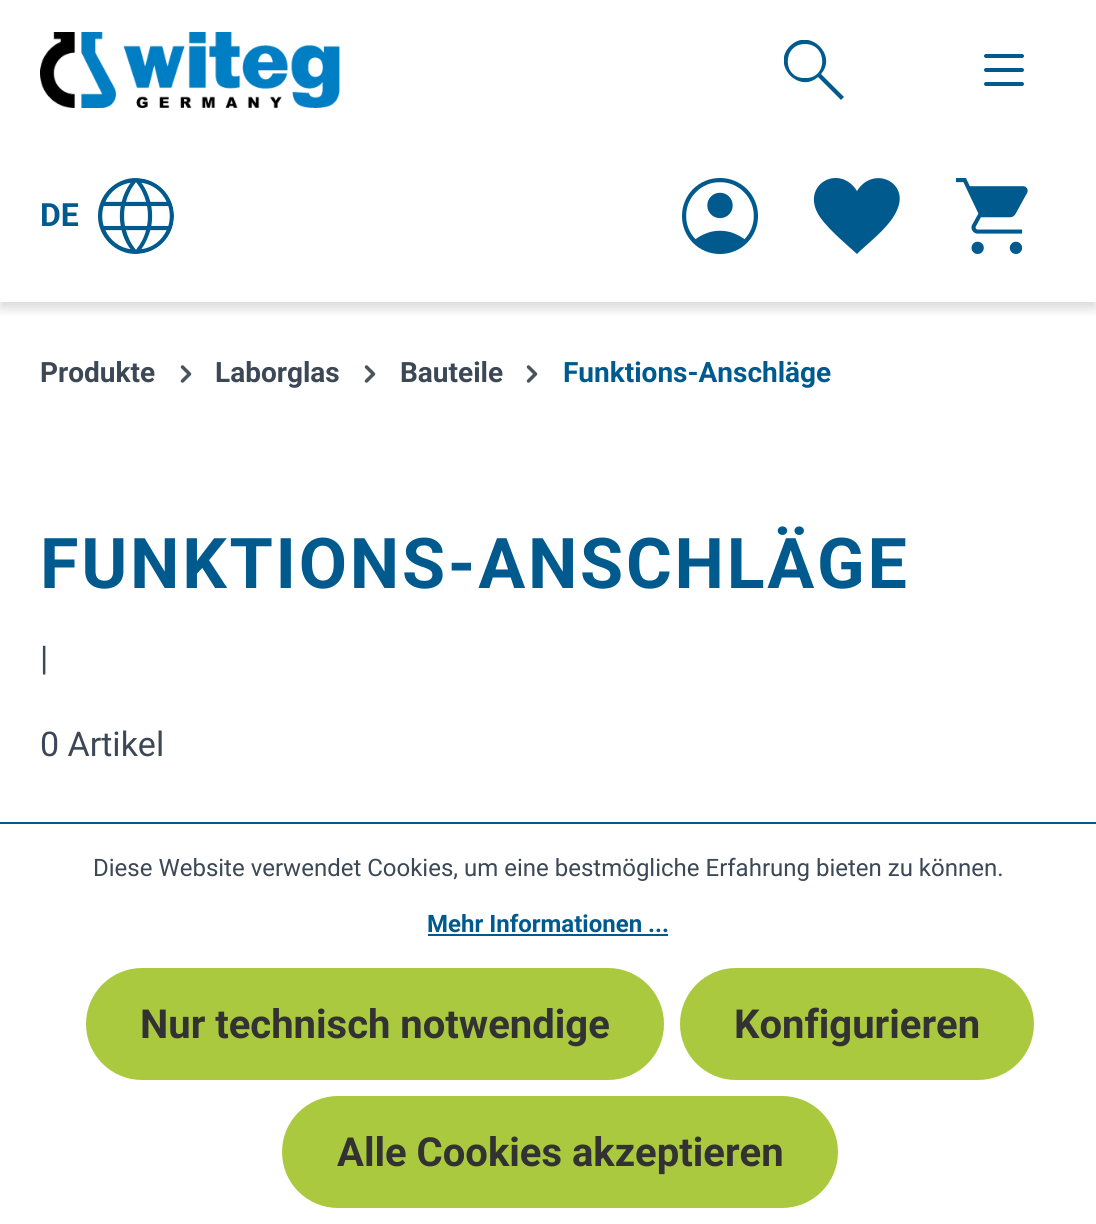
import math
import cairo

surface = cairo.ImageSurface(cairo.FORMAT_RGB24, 1096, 1224)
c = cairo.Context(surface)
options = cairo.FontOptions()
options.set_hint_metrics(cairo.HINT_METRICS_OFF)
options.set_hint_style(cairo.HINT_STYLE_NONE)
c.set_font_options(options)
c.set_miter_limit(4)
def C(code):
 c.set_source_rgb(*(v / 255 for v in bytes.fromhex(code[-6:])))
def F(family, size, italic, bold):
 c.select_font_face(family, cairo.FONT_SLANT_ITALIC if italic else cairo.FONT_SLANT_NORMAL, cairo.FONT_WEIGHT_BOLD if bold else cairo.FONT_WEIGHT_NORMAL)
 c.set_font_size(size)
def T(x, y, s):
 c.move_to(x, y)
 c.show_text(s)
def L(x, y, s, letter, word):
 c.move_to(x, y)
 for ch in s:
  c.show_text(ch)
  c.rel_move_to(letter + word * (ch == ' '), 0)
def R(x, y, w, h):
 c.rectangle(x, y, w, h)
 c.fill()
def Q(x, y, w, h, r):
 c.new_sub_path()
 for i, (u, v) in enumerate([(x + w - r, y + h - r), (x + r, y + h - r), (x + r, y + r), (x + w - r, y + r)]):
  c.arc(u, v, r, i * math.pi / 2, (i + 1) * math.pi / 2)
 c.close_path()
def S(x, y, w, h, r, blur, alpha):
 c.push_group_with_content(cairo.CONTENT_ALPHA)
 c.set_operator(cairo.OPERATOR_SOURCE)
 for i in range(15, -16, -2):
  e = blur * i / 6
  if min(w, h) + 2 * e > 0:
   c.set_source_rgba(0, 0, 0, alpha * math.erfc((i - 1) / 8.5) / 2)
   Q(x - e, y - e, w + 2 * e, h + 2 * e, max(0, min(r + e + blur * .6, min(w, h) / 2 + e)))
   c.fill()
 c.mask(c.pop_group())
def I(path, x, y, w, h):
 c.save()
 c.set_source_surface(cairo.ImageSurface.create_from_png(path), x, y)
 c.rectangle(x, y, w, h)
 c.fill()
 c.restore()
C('ffffff')
c.paint()
c.save()
c.rectangle(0,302,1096,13)
c.clip()
C('000000')
S(0,6,1096,302,0,6,.16)
c.restore()
I('1.png',40,32,300,76)
c.save()
c.rectangle(784,40,60,60)
c.clip()
C('005a8d')
c.new_path()
c.move_to(841,100)
c.line_to(818,77)
c.curve_to(799,94,771,65,790,46)
c.curve_to(809,27,838,55,821,74)
c.line_to(844,97)
c.close_path()
c.move_to(805,78)
c.curve_to(828,79,828,44,805,44)
c.curve_to(782,44,782,79,805,78)
c.close_path()
c.fill()
c.restore()
I('2.png',984,54,40,32)
F('Roboto',32,0,1)
C('005a8d')
T(40,226,'DE')
I('3.png',98,178,76,76)
I('4.png',682,178,76,76)
c.new_path()
c.move_to(857,254)
c.curve_to(845,243,824,226,817,212)
c.curve_to(803,183,840,164,857,191)
c.curve_to(873,165,910,182,897,210)
c.curve_to(891,225,872,240,860,251)
c.close_path()
c.fill()
I('5.png',956,178,72,76)
F('Roboto',28,0,1)
C('3c4856')
T(40,382,'Produkte')
I('6.png',180,365,12,18)
T(215,382,'Laborglas')
I('6.png',364,365,12,18)
T(400,382,'Bauteile')
I('6.png',526,365,12,18)
C('005a8d')
T(563,382,'Funktions-Anschläge')
F('Roboto',70,0,1)
L(40,588,'FUNKTIONS-ANSCHLÄGE',2.75,0)
F('Roboto',34,0,0)
C('3c4856')
T(40,670,'|')
T(40,756,'0 Artikel')
C('005a8d')
R(0,822,1096,2)
F('Roboto',24,0,0)
C('3c4856')
T(93,876,'Diese Website verwendet Cookies, um eine bestmögliche Erfahrung bieten zu können.')
F('Roboto',24,0,1)
C('005a8d')
T(427,932,'Mehr Informationen ...')
R(428,934,240,2)
C('aac93e')
Q(86,968,578,112,56)
c.fill()
F('Roboto',40,0,1)
C('323232')
T(140,1038,'Nur technisch notwendige')
C('aac93e')
Q(680,968,354,112,56)
c.fill()
C('323232')
T(734,1038,'Konfigurieren')
C('aac93e')
Q(282,1096,556,112,56)
c.fill()
C('323232')
T(337,1166,'Alle Cookies akzeptieren')
surface.write_to_png('o.png')
